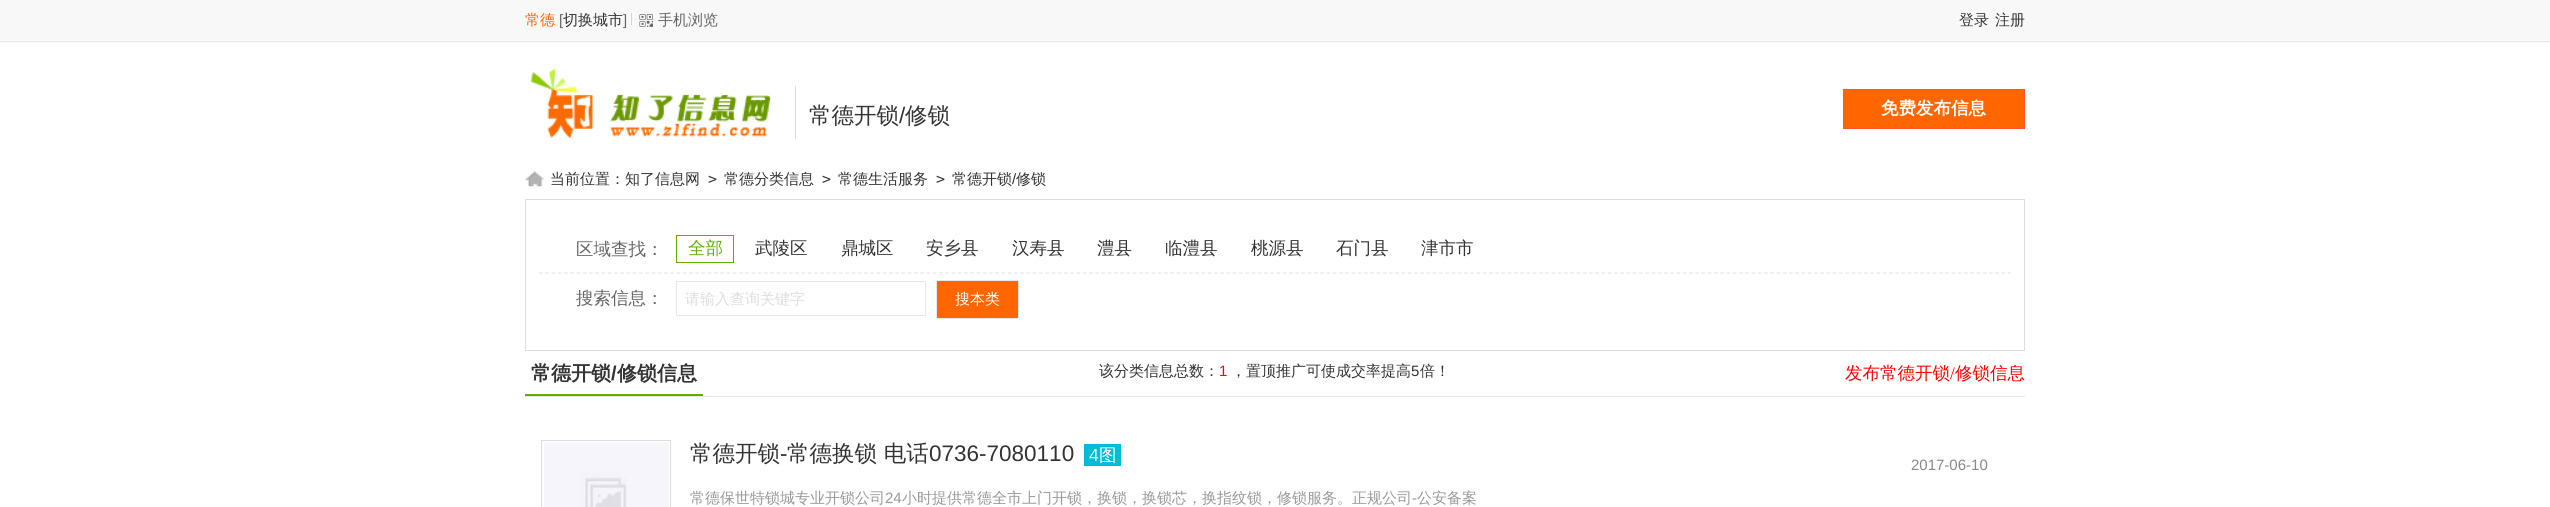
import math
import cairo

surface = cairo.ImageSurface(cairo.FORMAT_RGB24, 2550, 507)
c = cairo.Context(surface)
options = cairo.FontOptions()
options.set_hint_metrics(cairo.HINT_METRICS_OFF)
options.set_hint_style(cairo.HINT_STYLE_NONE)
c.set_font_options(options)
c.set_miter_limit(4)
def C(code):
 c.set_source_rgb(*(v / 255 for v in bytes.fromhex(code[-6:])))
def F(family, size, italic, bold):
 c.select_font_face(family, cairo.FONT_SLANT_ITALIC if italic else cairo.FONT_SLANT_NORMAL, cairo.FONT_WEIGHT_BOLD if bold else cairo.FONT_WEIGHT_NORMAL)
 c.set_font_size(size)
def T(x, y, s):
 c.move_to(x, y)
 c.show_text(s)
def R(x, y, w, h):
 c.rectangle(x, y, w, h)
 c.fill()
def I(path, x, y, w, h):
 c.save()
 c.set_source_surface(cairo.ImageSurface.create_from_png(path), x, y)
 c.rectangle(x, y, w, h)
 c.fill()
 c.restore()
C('ffffff')
c.paint()
C('f8f8f8')
R(0,0,2550,43)
C('e8e8e8')
R(0,41,2550,1)
F('WenQuanYi Zen Hei Medium',15,0,0)
C('ff6600')
T(525,25,'常德')
F('Liberation Sans',15,0,0)
C('666666')
T(559,25,'[')
F('WenQuanYi Zen Hei Medium',15,0,0)
C('333333')
T(563,25,'切换城市')
F('Liberation Sans',15,0,0)
C('666666')
T(623,25,']')
C('ffffff')
R(633,13,1,12)
C('d4d4d4')
R(631,13,1,12)
I('1.png',639,14,15,13)
F('WenQuanYi Zen Hei Medium',15,0,0)
C('666666')
T(658,25,'手机浏览')
C('333333')
T(1959,25,'登录')
T(1995,25,'注册')
I('2.png',530,68,241,70)
C('dddddd')
R(795,86,1,53)
F('WenQuanYi Zen Hei Medium',22.5,0,0)
C('333333')
T(809,123,'常德开锁')
F('Liberation Sans',22.5,0,0)
T(899,123,'/')
F('WenQuanYi Zen Hei Medium',22.5,0,0)
T(905,123,'修锁')
C('ff6600')
c.rectangle(1843.5,89.5,181,39)
c.fill_preserve()
C('ff552e')
c.set_line_width(1)
c.stroke()
F('WenQuanYi Zen Hei',17.5,0,1)
C('ffffff')
T(1881,114,'免费发布信息')
I('3.png',525,171,19,16)
F('WenQuanYi Zen Hei Medium',15,0,0)
C('333333')
T(550,184,'当前位置：知了信息网')
F('DejaVu Sans Mono',15,0,0)
T(708,184,'>')
F('WenQuanYi Zen Hei Medium',15,0,0)
T(724,184,'常德分类信息')
F('DejaVu Sans Mono',15,0,0)
T(822,184,'>')
F('WenQuanYi Zen Hei Medium',15,0,0)
T(838,184,'常德生活服务')
F('DejaVu Sans Mono',15,0,0)
T(936,184,'>')
F('WenQuanYi Zen Hei Medium',15,0,0)
T(952,184,'常德开锁')
F('Liberation Sans',15,0,0)
T(1012,184,'/')
F('WenQuanYi Zen Hei Medium',15,0,0)
T(1016,184,'修锁')
c.rectangle(525.5,199.5,1499,151)
C('dddddd')
c.stroke()
c.new_path()
c.move_to(539,273)
c.line_to(2011,273)
C('e6e6e6')
c.set_line_width(1.2)
c.set_dash([3.75,2.5])
c.stroke()
F('WenQuanYi Zen Hei Medium',17.5,0,0)
C('666666')
T(576,255,'区域查找：')
c.rectangle(676.5,235.5,57,27)
C('60af00')
c.set_line_width(1)
c.set_dash([])
c.stroke()
T(688,254,'全部')
C('333333')
T(755,254,'武陵区')
T(841,254,'鼎城区')
T(926,254,'安乡县')
T(1012,254,'汉寿县')
T(1097,254,'澧县')
T(1165,254,'临澧县')
T(1251,254,'桃源县')
T(1336,254,'石门县')
T(1421,254,'津市市')
C('666666')
T(576,304,'搜索信息：')
c.rectangle(676.5,281.5,249,34)
C('e7e7eb')
c.stroke()
F('WenQuanYi Zen Hei Medium',15,0,0)
C('dddddd')
T(685,304,'请输入查询关键字')
C('ff6600')
c.rectangle(936.5,280.5,82,38)
c.fill_preserve()
C('e7e7eb')
c.stroke()
C('ffffff')
T(955,304,'搜本类')
C('e7e7eb')
R(525,396,1500,1)
F('WenQuanYi Zen Hei',20,0,1)
C('333333')
T(531,380,'常德开锁')
F('Liberation Sans',20,0,1)
T(611,380,'/')
F('WenQuanYi Zen Hei',20,0,1)
T(617,380,'修锁信息')
C('60af00')
R(525,394,178,2)
F('WenQuanYi Zen Hei Medium',15,0,0)
C('333333')
T(1099,376,'该分类信息总数：')
F('Liberation Sans',15,0,0)
C('ff0000')
T(1219,376,'1')
F('WenQuanYi Zen Hei Medium',15,0,0)
C('333333')
T(1231,376,'，置顶推广可使成交率提高')
F('Liberation Sans',15,0,0)
T(1411,376,'5')
F('WenQuanYi Zen Hei Medium',15,0,0)
T(1420,376,'倍！')
F('WenQuanYi Zen Hei Medium',17.5,0,0)
C('ff0000')
T(1845,379,'发布常德开锁')
F('Liberation Serif',17.5,0,0)
T(1950,379,'/')
F('WenQuanYi Zen Hei Medium',17.5,0,0)
T(1955,379,'修锁信息')
c.rectangle(541.5,440.5,129,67)
C('dddddd')
c.stroke()
I('4.png',544,442,125,65)
F('WenQuanYi Zen Hei Medium',22.5,0,0)
C('333333')
T(690,461,'常德开锁')
F('Liberation Sans',22.5,0,0)
T(780,461,'-')
F('WenQuanYi Zen Hei Medium',22.5,0,0)
T(787,461,'常德换锁 电话')
F('Liberation Sans',22.5,0,0)
T(929,461,'0736-7080110')
C('00bcd4')
R(1084,444,37,22)
F('Liberation Sans',17.5,0,0)
C('ffffff')
T(1089,461,'4')
F('WenQuanYi Zen Hei Medium',17.5,0,0)
T(1099,461,'图')
F('Liberation Sans',15,0,0)
C('888888')
T(1911,470,'2017-06-10')
F('WenQuanYi Zen Hei Medium',15,0,0)
C('999999')
T(690,503,'常德保世特锁城专业开锁公司')
F('Liberation Sans',15,0,0)
T(885,503,'24')
F('WenQuanYi Zen Hei Medium',15,0,0)
T(902,503,'小时提供常德全市上门开锁，换锁，换锁芯，换指纹锁，修锁服务。正规公司')
F('Liberation Sans',15,0,0)
T(1412,503,'-')
F('WenQuanYi Zen Hei Medium',15,0,0)
T(1417,503,'公安备案')
surface.write_to_png('o.png')
